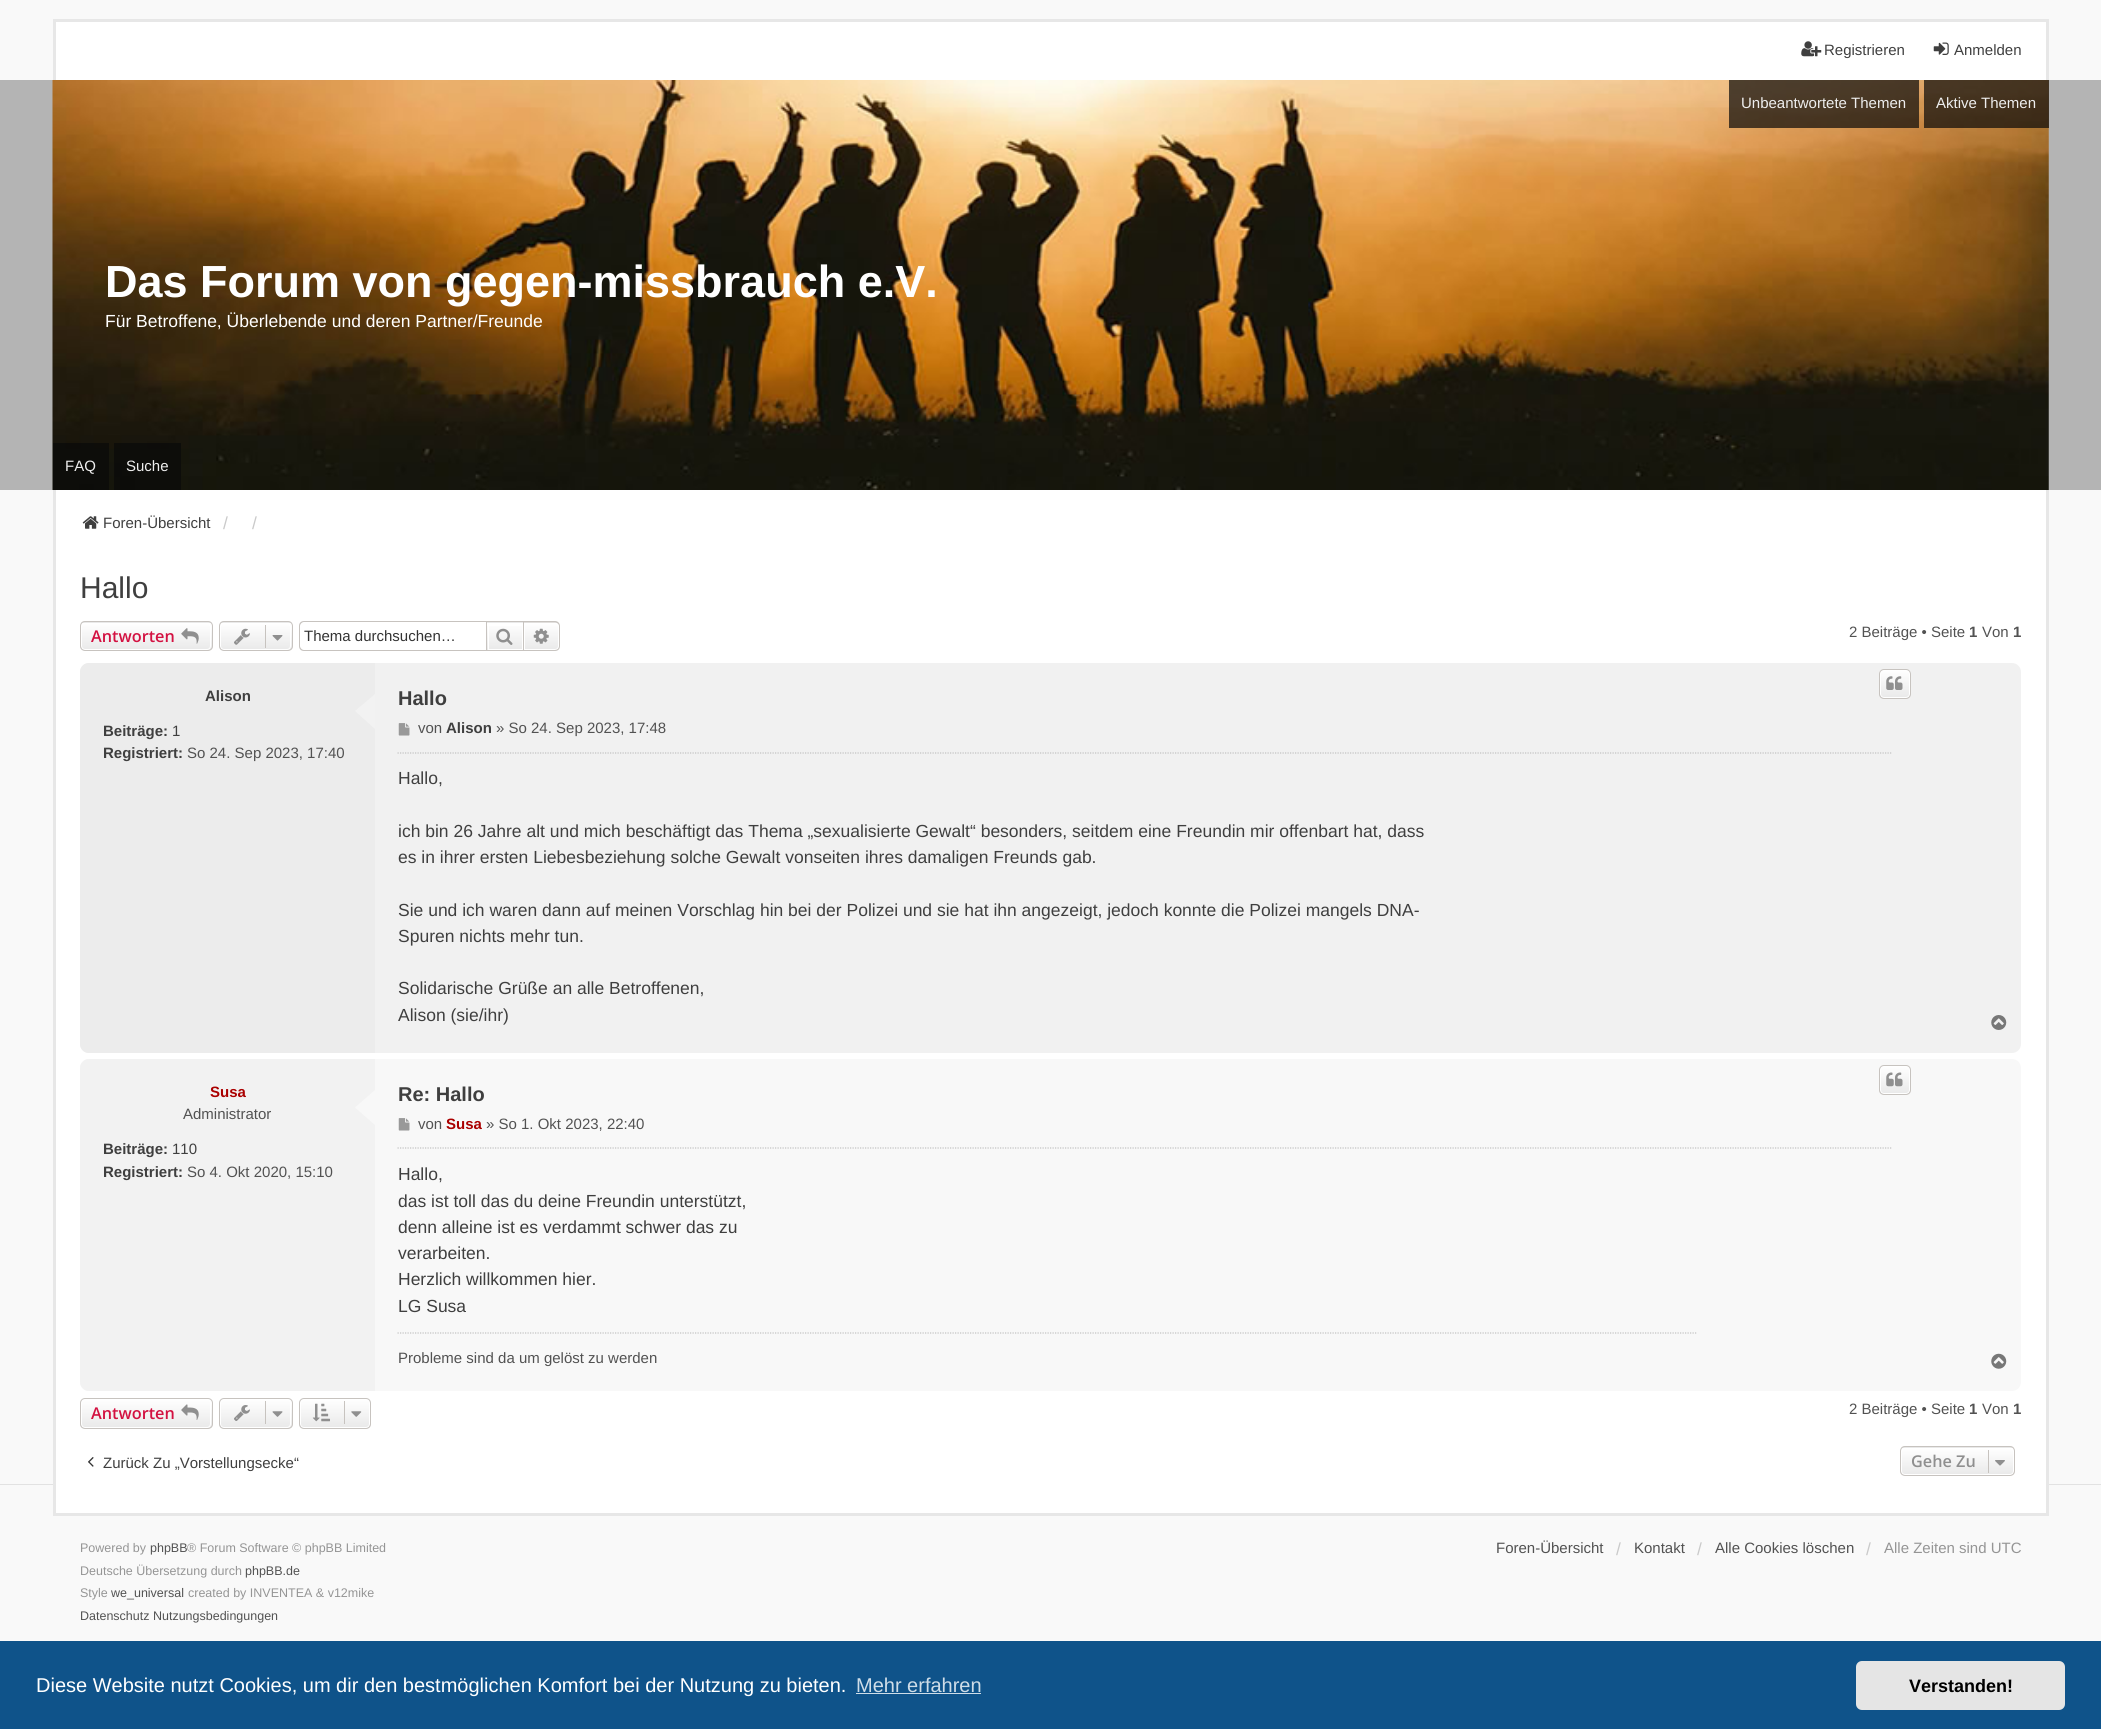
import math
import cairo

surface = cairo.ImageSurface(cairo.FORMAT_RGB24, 2101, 1729)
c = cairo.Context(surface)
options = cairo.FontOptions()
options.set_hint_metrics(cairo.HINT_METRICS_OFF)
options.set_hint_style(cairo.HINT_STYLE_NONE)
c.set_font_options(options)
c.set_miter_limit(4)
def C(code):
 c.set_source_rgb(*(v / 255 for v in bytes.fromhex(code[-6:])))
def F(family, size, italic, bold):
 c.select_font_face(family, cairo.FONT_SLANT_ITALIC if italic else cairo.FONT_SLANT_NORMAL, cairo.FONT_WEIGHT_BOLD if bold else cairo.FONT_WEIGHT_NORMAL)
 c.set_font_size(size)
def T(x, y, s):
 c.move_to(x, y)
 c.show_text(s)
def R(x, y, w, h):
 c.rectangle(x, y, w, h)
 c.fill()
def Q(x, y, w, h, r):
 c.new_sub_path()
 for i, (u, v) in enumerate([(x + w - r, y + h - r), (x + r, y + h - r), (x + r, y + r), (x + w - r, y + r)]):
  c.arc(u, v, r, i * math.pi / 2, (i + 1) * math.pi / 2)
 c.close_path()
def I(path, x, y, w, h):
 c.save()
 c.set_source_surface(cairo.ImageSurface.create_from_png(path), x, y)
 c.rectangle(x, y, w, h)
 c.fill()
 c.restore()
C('f9f9f9')
c.paint()
C('ffffff')
R(56,22,1990,58)
C('e7e7e7')
R(53,19,1996,3)
R(2046,19,3,61)
R(53,19,3,61)
I('1.png',1801,41,21,16)
F('Liberation Sans',15,0,0)
C('3f3f3f')
T(1824,55,'Registrieren')
I('2.png',1933,42,16,13)
T(1954,55,'Anmelden')
C('b4b4b4')
R(0,80,2101,410)
I('3.png',52,80,1997,410)
c.set_source_rgba(0.039,0.039,0.039,0.7)
R(1729,80,190,48)
C('eeeeee')
T(1741,108,'Unbeantwortete Themen')
c.set_source_rgba(0.039,0.039,0.039,0.7)
R(1924,80,125,48)
C('eeeeee')
T(1936,108,'Aktive Themen')
F('Liberation Sans',45,0,1)
C('ffffff')
T(105,297,'Das Forum von gegen-missbrauch e.V.')
F('Liberation Sans',17.5,0,0)
T(105,327,'Für Betroffene, Überlebende und deren Partner/Freunde')
c.set_source_rgba(0.039,0.039,0.039,0.7)
R(53,443,56,47)
F('Liberation Sans',15,0,0)
C('eeeeee')
T(65,471,'FAQ')
c.set_source_rgba(0.039,0.039,0.039,0.7)
R(114,443,67,47)
C('eeeeee')
T(126,471,'Suche')
C('e2e2e2')
R(0,1484,2101,1)
C('ffffff')
R(56,490,1990,1023)
C('e7e7e7')
R(2046,490,3,1025)
R(53,1513,1996,3)
R(53,490,3,1025)
I('4.png',82,516,17,13)
C('3f3f3f')
T(103,528,'Foren-Übersicht')
F('Liberation Sans',17.5,0,0)
C('cacaca')
T(223,529,'/')
T(252,529,'/')
F('Liberation Sans',30,0,0)
C('3f3f3f')
T(80,598,'Hallo')
c.save()
Q(80,621,133,30,5)
c.clip()
gradient = cairo.LinearGradient(146,595,146,623)
gradient.add_color_stop_rgba(0,1,1,1,1)
gradient.add_color_stop_rgba(1,0.914,0.914,0.914,1)
c.set_source(gradient)
R(80,621,133,2)
gradient = cairo.LinearGradient(146,623,146,650)
gradient.add_color_stop_rgba(0,1,1,1,1)
gradient.add_color_stop_rgba(1,0.914,0.914,0.914,1)
c.set_source(gradient)
R(80,623,133,27)
c.restore()
Q(81.5,623.5,129,26,3.5)
C('ffffff')
c.set_line_width(1)
c.stroke()
Q(80.5,621.5,132,29,4.5)
C('c7c3bf')
c.stroke()
F('Open Sans SemiBold',16.25,0,0)
C('d31141')
T(91,642,'Antworten')
I('5.png',181,628,18,16)
c.save()
Q(219,621,74,30,5)
c.clip()
gradient = cairo.LinearGradient(256,595,256,623)
gradient.add_color_stop_rgba(0,1,1,1,1)
gradient.add_color_stop_rgba(1,0.914,0.914,0.914,1)
c.set_source(gradient)
R(219,621,74,2)
gradient = cairo.LinearGradient(256,623,256,650)
gradient.add_color_stop_rgba(0,1,1,1,1)
gradient.add_color_stop_rgba(1,0.914,0.914,0.914,1)
c.set_source(gradient)
R(219,623,74,27)
c.restore()
Q(220.5,623.5,70,26,3.5)
C('ffffff')
c.stroke()
Q(219.5,621.5,73,29,4.5)
C('c7c3bf')
c.stroke()
I('6.png',234,628,16,17)
R(265,625,1,23)
I('7.png',272,635,11,6)
c.set_fill_rule(cairo.FILL_RULE_EVEN_ODD)
c.new_path()
c.move_to(304,621)
c.line_to(486,621)
c.line_to(486,651)
c.line_to(304,651)
c.curve_to(301,651,299,649,299,646)
c.line_to(299,626)
c.curve_to(299,623,301,621,304,621)
c.close_path()
c.move_to(304,622)
c.line_to(486,622)
c.line_to(486,650)
c.line_to(304,650)
c.curve_to(302,650,300,648,300,646)
c.line_to(300,626)
c.curve_to(300,624,302,622,304,622)
c.close_path()
c.fill()
F('Liberation Sans',15,0,0)
C('333333')
T(304,641,'Thema durchsuchen…')
C('e9e9e9')
R(487,622,36,1)
gradient = cairo.LinearGradient(505,623,505,650)
gradient.add_color_stop_rgba(0,1,1,1,1)
gradient.add_color_stop_rgba(1,0.914,0.914,0.914,1)
c.set_source(gradient)
R(487,626,35,24)
c.rectangle(488.5,623.5,34,26)
C('ffffff')
c.stroke()
c.rectangle(486.5,621.5,37,29)
C('c7c3bf')
c.stroke()
I('8.png',496,628,17,17)
gradient = cairo.LinearGradient(541,623,541,650)
gradient.add_color_stop_rgba(0,1,1,1,1)
gradient.add_color_stop_rgba(1,0.914,0.914,0.914,1)
c.set_source(gradient)
c.new_path()
c.move_to(524.5,623.5)
c.line_to(555,623.5)
c.curve_to(557,623.5,558.5,625,558.5,627)
c.line_to(558.5,646)
c.curve_to(558.5,648,557,649.5,555,649.5)
c.line_to(524.5,649.5)
c.close_path()
c.fill_preserve()
C('ffffff')
c.stroke()
C('c7c3bf')
c.new_path()
c.move_to(524,621)
c.line_to(555,621)
c.curve_to(558,621,560,623.5,560,626)
c.line_to(560,646)
c.curve_to(560,649,558,651,555,651)
c.line_to(524,651)
c.close_path()
c.move_to(524,622.5)
c.line_to(555,622.5)
c.curve_to(557,622.5,559,624,559,626)
c.line_to(559,646)
c.curve_to(559,648.5,557,650,555,650)
c.line_to(524,650)
c.close_path()
c.fill()
I('9.png',533,628,16,16)
C('525252')
T(1849,637,'2 Beiträge • Seite')
F('Liberation Sans',15,0,1)
T(1969,637,'1')
F('Liberation Sans',15,0,0)
T(1982,637,'Von')
F('Liberation Sans',15,0,1)
T(2013,637,'1')
C('f1f1f1')
Q(80,663,1941,390,9)
c.fill()
C('ececec')
c.new_path()
c.move_to(89,663)
c.line_to(375,663)
c.line_to(375,1053)
c.line_to(89,1053)
c.curve_to(84,1053,80,1049,80,1044)
c.line_to(80,672)
c.curve_to(80,667,84,663,89,663)
c.close_path()
c.fill()
C('3f3f3f')
T(205,701,'Alison')
T(103,736,'Beiträge:')
F('Liberation Sans',15,0,0)
T(172,736,'1')
F('Liberation Sans',15,0,1)
T(103,758,'Registriert:')
F('Liberation Sans',15,0,0)
C('525252')
T(187,758,'So 24. Sep 2023, 17:40')
C('f2f2f2')
c.set_fill_rule(cairo.FILL_RULE_WINDING)
c.new_path()
c.move_to(375,694)
c.line_to(375,729)
c.line_to(355,711)
c.close_path()
c.fill()
F('Liberation Sans',20,0,1)
C('3f3f3f')
T(398,705,'Hallo')
c.save()
Q(1879,669,32,30,5)
c.clip()
gradient = cairo.LinearGradient(1895,670,1895,698)
gradient.add_color_stop_rgba(0,1,1,1,1)
gradient.add_color_stop_rgba(1,0.914,0.914,0.914,1)
c.set_source(gradient)
R(1879,670,32,28)
c.restore()
Q(1880.5,670.5,29,27,3.5)
C('ffffff')
c.stroke()
Q(1879.5,669.5,31,29,4.5)
C('c7c3bf')
c.stroke()
I('10.png',1886,676,17,14)
c.new_path()
c.move_to(397.5,753)
c.line_to(1892.5,753)
C('c2c2c2')
c.set_line_width(1.2)
c.set_dash([1.25,1.25])
c.stroke()
I('11.png',398,723,12,13)
F('Liberation Sans',15,0,0)
C('525252')
T(418,733,'von')
F('Liberation Sans',15,0,1)
C('3f3f3f')
T(446,733,'Alison')
F('Liberation Sans',15,0,0)
C('525252')
T(496,733,'» So 24. Sep 2023, 17:48')
F('Liberation Sans',17.5,0,0)
C('3f3f3f')
T(398,784,'Hallo,')
T(398,837,'ich bin 26 Jahre alt und mich beschäftigt das Thema „sexualisierte Gewalt“ besonders, seitdem eine Freundin mir offenbart hat, dass')
T(398,863,'es in ihrer ersten Liebesbeziehung solche Gewalt vonseiten ihres damaligen Freunds gab.')
T(398,916,'Sie und ich waren dann auf meinen Vorschlag hin bei der Polizei und sie hat ihn angezeigt, jedoch konnte die Polizei mangels DNA-')
T(398,942,'Spuren nichts mehr tun.')
T(398,994,'Solidarische Grüße an alle Betroffenen,')
T(398,1021,'Alison (sie/ihr)')
I('12.png',1991,1015,16,15)
C('f8f8f8')
Q(80,1059,1941,332,9)
c.fill()
C('f2f2f2')
c.new_path()
c.move_to(89,1059)
c.line_to(375,1059)
c.line_to(375,1391)
c.line_to(89,1391)
c.curve_to(84,1391,80,1387,80,1382)
c.line_to(80,1068)
c.curve_to(80,1063,84,1059,89,1059)
c.close_path()
c.fill()
F('Liberation Sans',15,0,1)
C('aa0000')
T(210,1097,'Susa')
F('Liberation Sans',15,0,0)
C('525252')
T(183,1119,'Administrator')
F('Liberation Sans',15,0,1)
C('3f3f3f')
T(103,1154,'Beiträge:')
F('Liberation Sans',15,0,0)
T(172,1154,'110')
F('Liberation Sans',15,0,1)
T(103,1177,'Registriert:')
F('Liberation Sans',15,0,0)
C('525252')
T(187,1177,'So 4. Okt 2020, 15:10')
C('f8f8f8')
c.new_path()
c.move_to(375,1090)
c.line_to(375,1125)
c.line_to(355,1107.5)
c.close_path()
c.fill()
F('Liberation Sans',20,0,1)
C('3f3f3f')
T(398,1101,'Re: Hallo')
c.save()
Q(1879,1065,32,30,5)
c.clip()
gradient = cairo.LinearGradient(1895,1066,1895,1094)
gradient.add_color_stop_rgba(0,1,1,1,1)
gradient.add_color_stop_rgba(1,0.914,0.914,0.914,1)
c.set_source(gradient)
R(1879,1066,32,28)
c.restore()
Q(1880.5,1066.5,29,27,3.5)
C('ffffff')
c.set_line_width(1)
c.set_dash([])
c.stroke()
Q(1879.5,1065.5,31,29,4.5)
C('c7c3bf')
c.stroke()
I('13.png',1886,1072,17,15)
c.new_path()
c.move_to(397.5,1148)
c.line_to(1892.5,1148)
C('c2c2c2')
c.set_line_width(1.2)
c.set_dash([1.25,1.25])
c.stroke()
I('14.png',398,1118,12,13)
F('Liberation Sans',15,0,0)
C('525252')
T(418,1129,'von')
F('Liberation Sans',15,0,1)
C('aa0000')
T(446,1129,'Susa')
F('Liberation Sans',15,0,0)
C('525252')
T(486,1129,'» So 1. Okt 2023, 22:40')
F('Liberation Sans',17.5,0,0)
C('3f3f3f')
T(398,1180,'Hallo,')
T(398,1207,'das ist toll das du deine Freundin unterstützt,')
T(398,1233,'denn alleine ist es verdammt schwer das zu')
T(398,1259,'verarbeiten.')
T(398,1285,'Herzlich willkommen hier.')
T(398,1312,'LG Susa')
c.new_path()
c.move_to(397.5,1333)
c.line_to(1697.5,1333)
C('c2c2c2')
c.stroke()
F('Liberation Sans',15,0,0)
C('525252')
T(398,1363,'Probleme sind da um gelöst zu werden')
I('15.png',1991,1353,16,16)
c.save()
Q(80,1398,133,31,5)
c.clip()
gradient = cairo.LinearGradient(146,1399,146,1428)
gradient.add_color_stop_rgba(0,1,1,1,1)
gradient.add_color_stop_rgba(1,0.914,0.914,0.914,1)
c.set_source(gradient)
R(80,1399,133,29)
c.restore()
Q(81.5,1399.5,129,28,3.5)
C('ffffff')
c.set_line_width(1)
c.set_dash([])
c.stroke()
Q(80.5,1398.5,132,30,4.5)
C('c7c3bf')
c.stroke()
F('Open Sans SemiBold',16.25,0,0)
C('d31141')
T(91,1419,'Antworten')
I('16.png',181,1404,18,16)
c.save()
Q(219,1398,74,31,5)
c.clip()
gradient = cairo.LinearGradient(256,1399,256,1428)
gradient.add_color_stop_rgba(0,1,1,1,1)
gradient.add_color_stop_rgba(1,0.914,0.914,0.914,1)
c.set_source(gradient)
R(219,1399,74,29)
c.restore()
Q(220.5,1399.5,70,28,3.5)
C('ffffff')
c.stroke()
Q(219.5,1398.5,73,30,4.5)
C('c7c3bf')
c.stroke()
I('17.png',234,1405,16,16)
R(265,1401,1,23)
I('18.png',272,1411,11,6)
c.save()
Q(299,1398,72,31,5)
c.clip()
gradient = cairo.LinearGradient(335,1399,335,1428)
gradient.add_color_stop_rgba(0,1,1,1,1)
gradient.add_color_stop_rgba(1,0.914,0.914,0.914,1)
c.set_source(gradient)
R(299,1399,72,29)
c.restore()
Q(300.5,1399.5,69,28,3.5)
C('ffffff')
c.stroke()
Q(299.5,1398.5,71,30,4.5)
C('c7c3bf')
c.stroke()
I('19.png',312,1403,18,19)
R(344,1401,1,23)
I('20.png',351,1411,11,6)
F('Liberation Sans',15,0,0)
C('525252')
T(1849,1414,'2 Beiträge • Seite')
F('Liberation Sans',15,0,1)
T(1969,1414,'1')
F('Liberation Sans',15,0,0)
T(1982,1414,'Von')
F('Liberation Sans',15,0,1)
T(2013,1414,'1')
I('21.png',88,1457,6,10)
F('Liberation Sans',15,0,0)
C('3f3f3f')
T(103,1468,'Zurück Zu „Vorstellungsecke“')
c.save()
Q(1900,1446,115,30,5)
c.clip()
gradient = cairo.LinearGradient(1958,1420,1958,1448)
gradient.add_color_stop_rgba(0,1,1,1,1)
gradient.add_color_stop_rgba(1,0.914,0.914,0.914,1)
c.set_source(gradient)
R(1900,1446,115,2)
gradient = cairo.LinearGradient(1958,1448,1958,1475)
gradient.add_color_stop_rgba(0,1,1,1,1)
gradient.add_color_stop_rgba(1,0.914,0.914,0.914,1)
c.set_source(gradient)
R(1900,1448,115,27)
c.restore()
Q(1901.5,1448.5,112,26,3.5)
C('ffffff')
c.stroke()
Q(1900.5,1446.5,114,29,4.5)
C('c7c3bf')
c.stroke()
F('Open Sans SemiBold',16.25,0,0)
C('8f8f8f')
T(1911,1467,'Gehe Zu')
C('c7c3bf')
R(1988,1450,1,23)
I('22.png',1995,1460,10,6)
F('Liberation Sans',12.5,0,0)
C('959595')
T(80,1552,'Powered by')
C('525252')
T(150,1552,'phpBB')
C('959595')
T(187,1552,'® Forum Software © phpBB Limited')
T(80,1575,'Deutsche Übersetzung durch')
C('525252')
T(245,1575,'phpBB.de')
C('959595')
T(80,1597,'Style')
C('525252')
T(111,1597,'we_universal')
C('959595')
T(188,1597,'created by INVENTEA & v12mike')
C('525252')
T(80,1620,'Datenschutz Nutzungsbedingungen')
F('Liberation Sans',15,0,0)
T(1496,1553,'Foren-Übersicht')
F('Liberation Sans',17.5,0,0)
C('cacaca')
T(1616,1555,'/')
F('Liberation Sans',15,0,0)
C('525252')
T(1634,1553,'Kontakt')
F('Liberation Sans',17.5,0,0)
C('cacaca')
T(1697,1555,'/')
F('Liberation Sans',15,0,0)
C('525252')
T(1715,1553,'Alle Cookies löschen')
F('Liberation Sans',17.5,0,0)
C('cacaca')
T(1866,1555,'/')
F('Liberation Sans',15,0,0)
C('959595')
T(1884,1553,'Alle Zeiten sind UTC')
C('0f538a')
R(0,1641,2101,88)
F('Liberation Sans',20,0,0)
C('ffffff')
T(36,1692,'Diese Website nutzt Cookies, um dir den bestmöglichen Komfort bei der Nutzung zu bieten.')
C('cfdde8')
T(856,1692,'Mehr erfahren')
R(856,1693,125,1)
C('e5e5e5')
Q(1856,1661,209,49,6)
c.fill()
F('Liberation Sans',18,0,1)
C('000000')
T(1909,1692,'Verstanden!')
surface.write_to_png('o.png')
